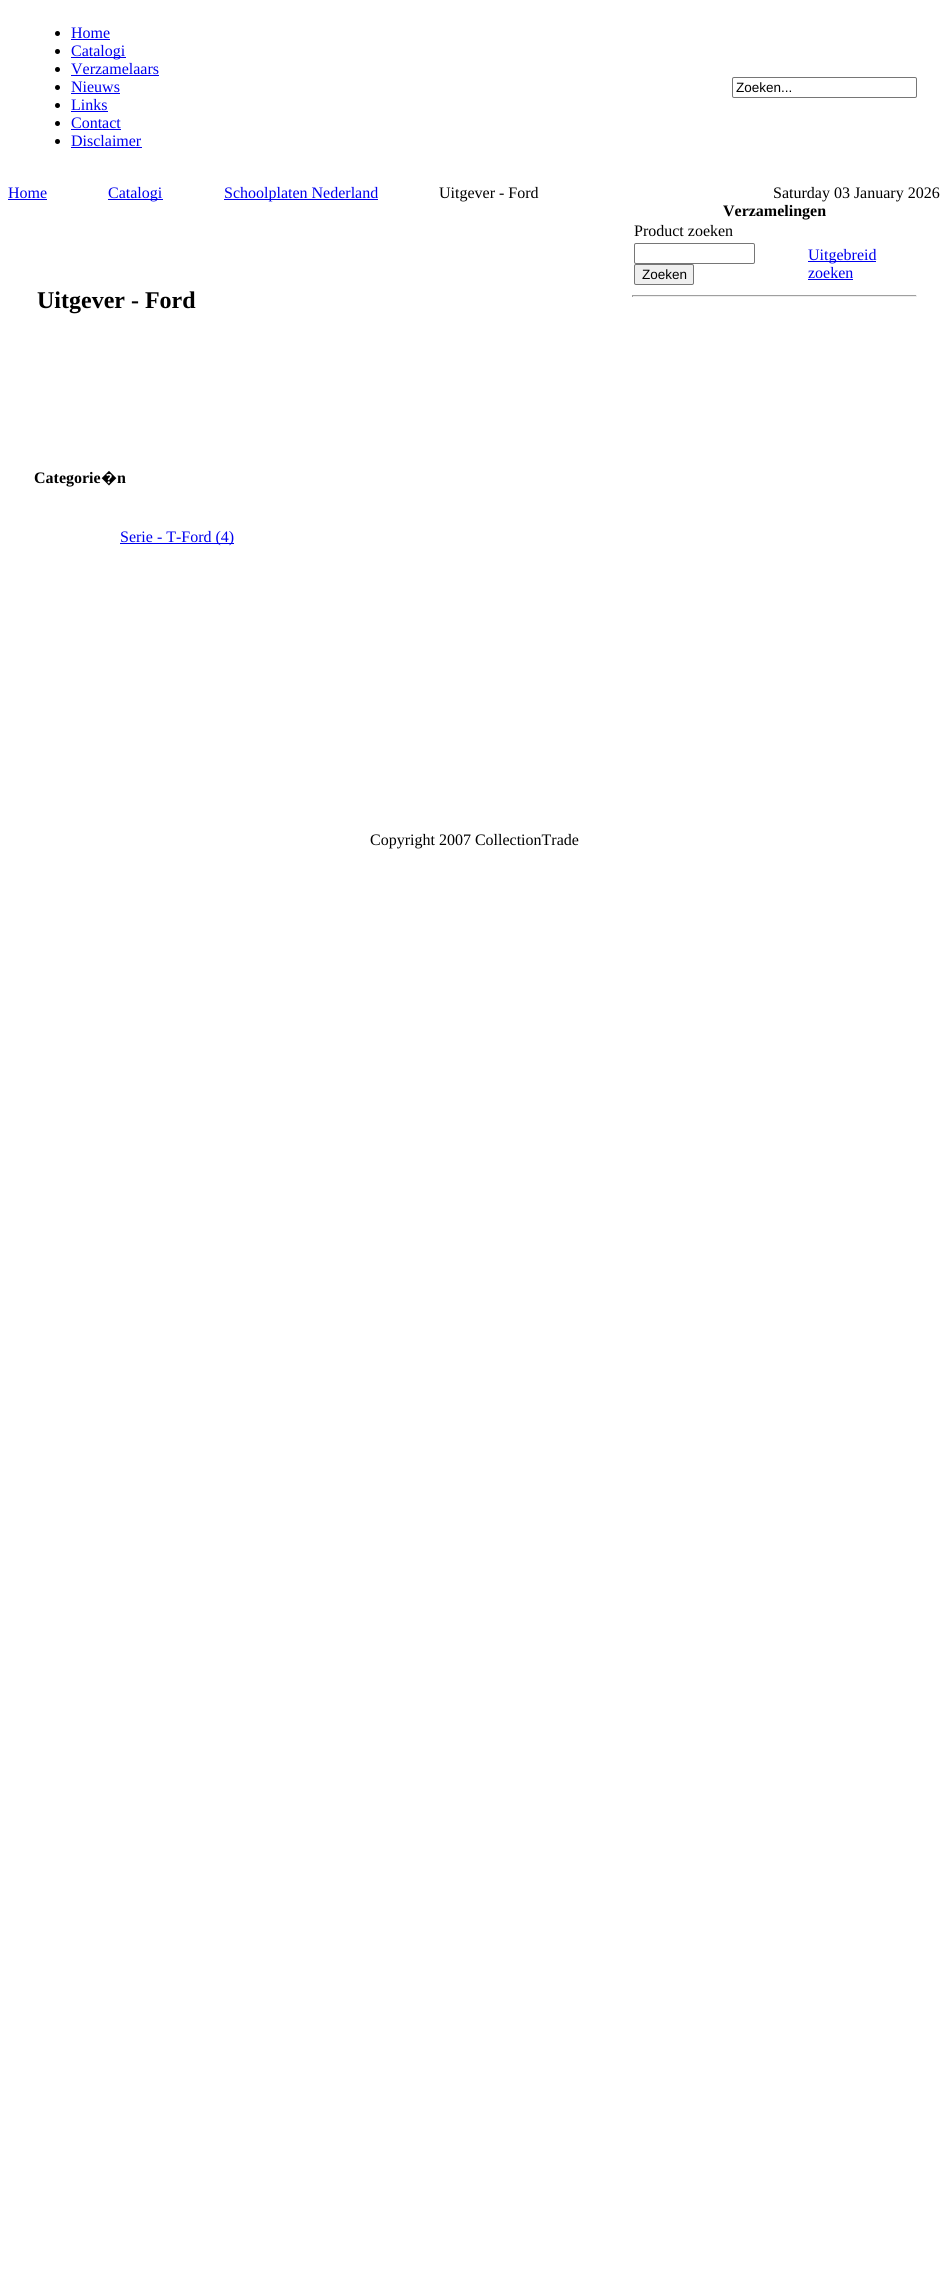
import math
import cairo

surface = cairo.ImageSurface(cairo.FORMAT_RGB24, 948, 2270)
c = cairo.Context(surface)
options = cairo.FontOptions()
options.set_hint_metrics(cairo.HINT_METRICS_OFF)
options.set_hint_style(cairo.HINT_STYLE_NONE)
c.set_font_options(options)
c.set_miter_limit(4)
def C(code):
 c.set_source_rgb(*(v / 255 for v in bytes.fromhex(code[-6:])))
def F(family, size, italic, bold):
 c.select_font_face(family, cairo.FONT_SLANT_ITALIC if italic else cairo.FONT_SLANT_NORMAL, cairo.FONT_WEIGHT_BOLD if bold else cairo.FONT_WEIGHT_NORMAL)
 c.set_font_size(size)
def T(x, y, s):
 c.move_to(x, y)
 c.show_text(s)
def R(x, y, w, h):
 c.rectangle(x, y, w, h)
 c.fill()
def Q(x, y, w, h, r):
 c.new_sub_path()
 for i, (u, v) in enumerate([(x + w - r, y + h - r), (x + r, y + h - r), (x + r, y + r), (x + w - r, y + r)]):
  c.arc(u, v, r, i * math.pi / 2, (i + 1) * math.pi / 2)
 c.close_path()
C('ffffff')
c.paint()
C('000000')
c.arc(57.5,33.5,2.5,0,2 * math.pi)
c.fill()
F('Liberation Serif',16,0,0)
C('0000ee')
T(71,38,'Home')
R(71,39,39,1)
C('000000')
c.new_path()
c.arc(57.5,51.5,2.5,0,2 * math.pi)
c.fill()
C('0000ee')
R(71,57,55,1)
T(71,56,'Catalogi')
C('000000')
c.new_path()
c.arc(57.5,69.5,2.5,0,2 * math.pi)
c.fill()
C('0000ee')
T(71,74,'Verzamelaars')
R(71,75,88,1)
C('000000')
c.new_path()
c.arc(57.5,87.5,2.5,0,2 * math.pi)
c.fill()
C('0000ee')
T(71,92,'Nieuws')
R(71,93,49,1)
C('000000')
c.new_path()
c.arc(57.5,105.5,2.5,0,2 * math.pi)
c.fill()
C('0000ee')
T(71,110,'Links')
R(71,111,37,1)
C('000000')
c.new_path()
c.arc(57.5,123.5,2.5,0,2 * math.pi)
c.fill()
C('0000ee')
T(71,128,'Contact')
R(71,129,50,1)
C('000000')
c.new_path()
c.arc(57.5,141.5,2.5,0,2 * math.pi)
c.fill()
C('0000ee')
T(71,146,'Disclaimer')
R(71,147,71,1)
Q(732.5,77.5,184,20,1.5)
C('767676')
c.set_line_width(1)
c.stroke()
F('Liberation Sans',13.5,0,0)
C('000000')
T(736,92,'Zoeken...')
F('Liberation Serif',16,0,0)
C('0000ee')
T(8,198,'Home')
R(8,199,39,1)
R(108,199,55,1)
T(108,198,'Catalogi')
R(224,199,154,1)
T(224,198,'Schoolplaten Nederland')
C('000000')
T(439,198,'Uitgever - Ford')
T(773,198,'Saturday 03 January 2026')
F('Liberation Serif',16,0,1)
T(723,216,'Verzamelingen')
F('Liberation Serif',16,0,0)
T(634,236,'Product zoeken')
Q(634.5,243.5,120,20,1.5)
C('767676')
c.stroke()
C('efefef')
Q(634.5,264.5,59,20,1.5)
c.fill_preserve()
C('767676')
c.stroke()
F('Liberation Sans',13.5,0,0)
C('000000')
T(642,279,'Zoeken')
C('0000ee')
R(808,261,68,1)
F('Liberation Serif',16,0,0)
T(808,260,'Uitgebreid')
T(808,278,'zoeken')
R(808,279,45,1)
C('9f9f9f')
R(632,295,285,1)
C('eeeeee')
R(916,295,1,2)
R(632,296,285,1)
C('9f9f9f')
R(632,295,1,2)
F('Liberation Serif',24,0,1)
C('000000')
T(37,308,'Uitgever - Ford')
F('Liberation Serif',16,0,1)
T(34,483,'Categorie')
F('Noto Sans',16,0,1)
T(101,483,'�')
F('Liberation Serif',16,0,1)
T(117,483,'n')
C('0000ee')
R(120,543,114,1)
F('Liberation Serif',16,0,0)
T(120,542,'Serie - T-Ford (4)')
C('000000')
T(370,845,'Copyright 2007 CollectionTrade')
surface.write_to_png('o.png')
